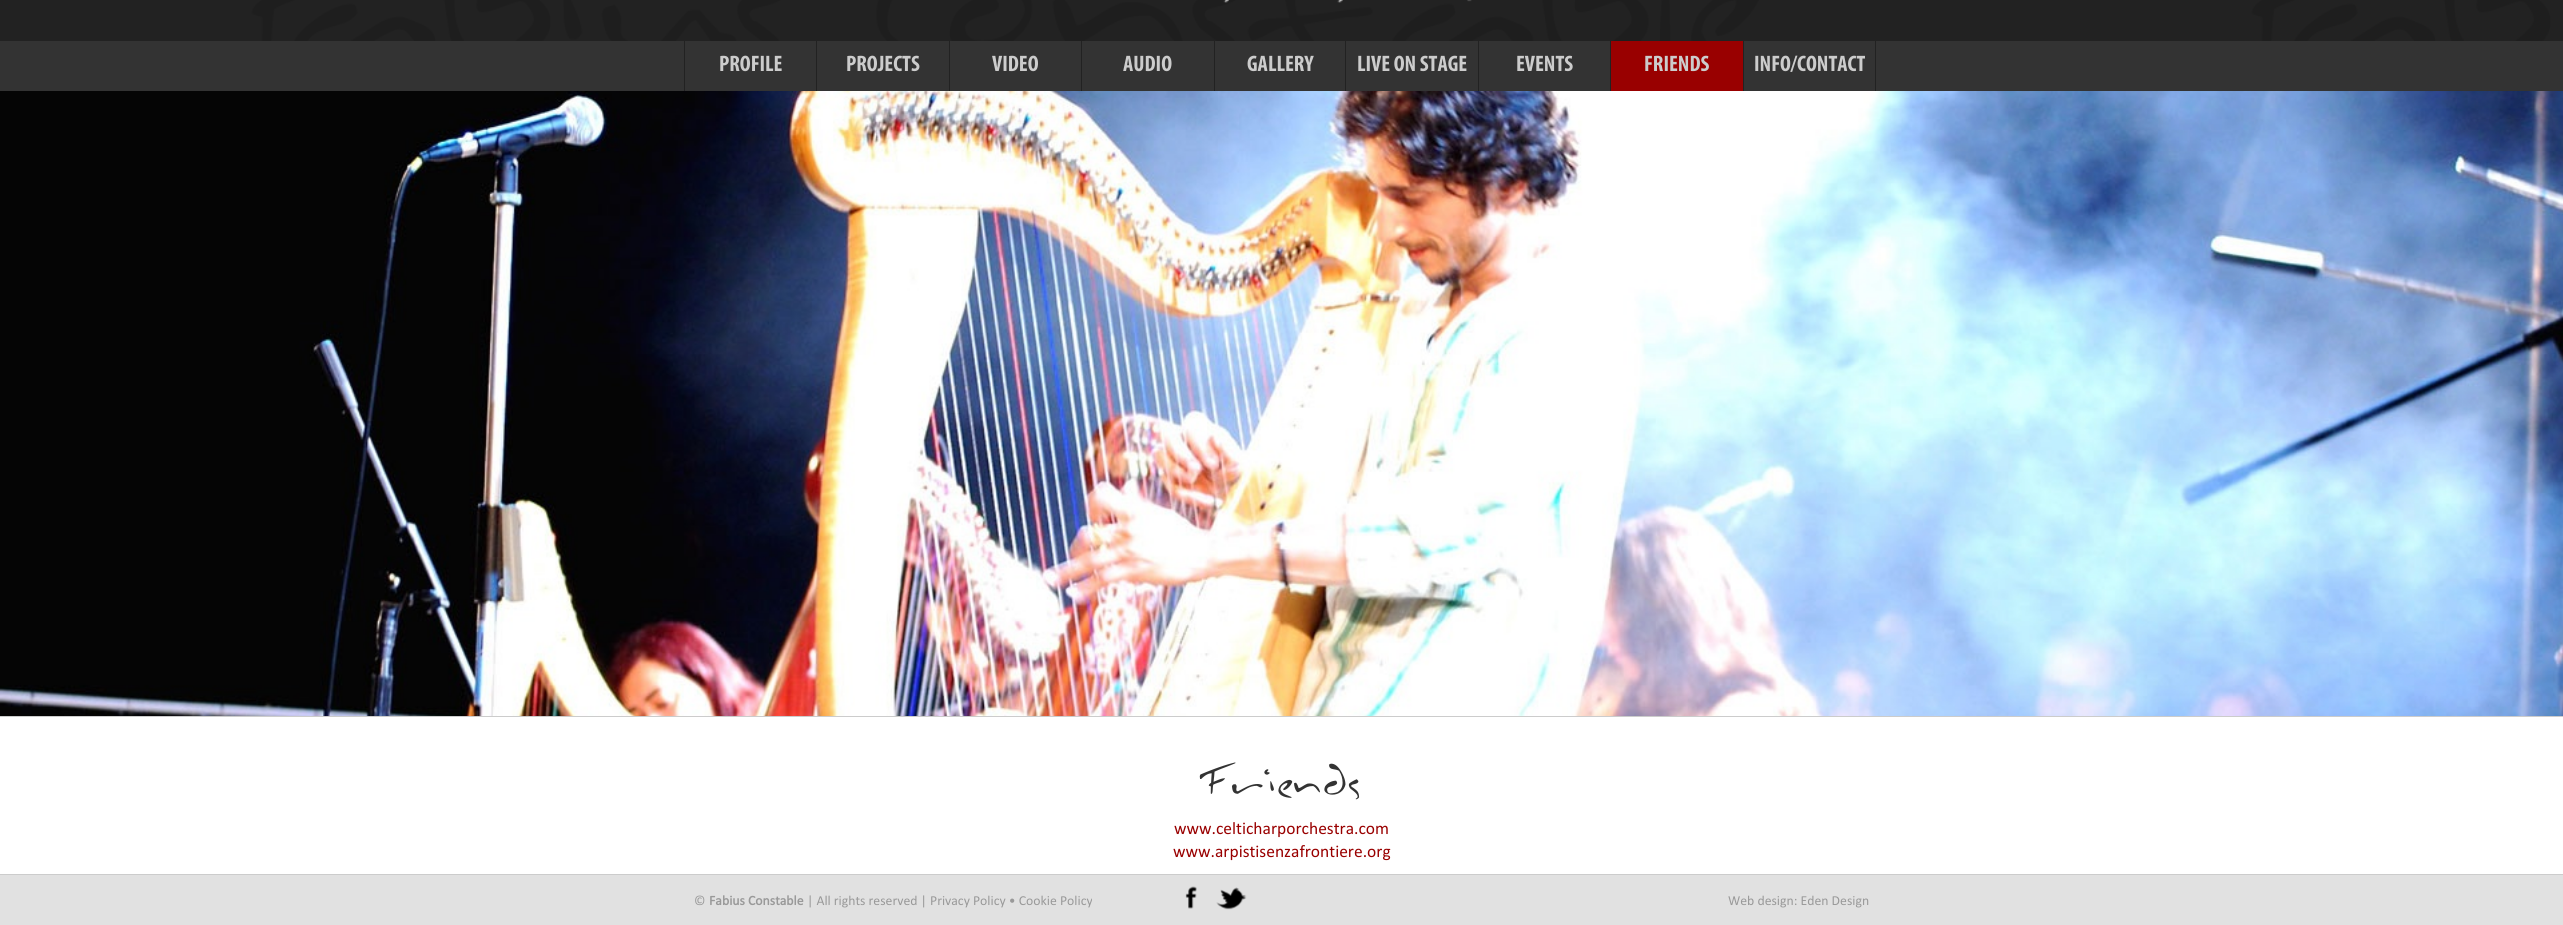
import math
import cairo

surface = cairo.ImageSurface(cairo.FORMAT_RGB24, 2563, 925)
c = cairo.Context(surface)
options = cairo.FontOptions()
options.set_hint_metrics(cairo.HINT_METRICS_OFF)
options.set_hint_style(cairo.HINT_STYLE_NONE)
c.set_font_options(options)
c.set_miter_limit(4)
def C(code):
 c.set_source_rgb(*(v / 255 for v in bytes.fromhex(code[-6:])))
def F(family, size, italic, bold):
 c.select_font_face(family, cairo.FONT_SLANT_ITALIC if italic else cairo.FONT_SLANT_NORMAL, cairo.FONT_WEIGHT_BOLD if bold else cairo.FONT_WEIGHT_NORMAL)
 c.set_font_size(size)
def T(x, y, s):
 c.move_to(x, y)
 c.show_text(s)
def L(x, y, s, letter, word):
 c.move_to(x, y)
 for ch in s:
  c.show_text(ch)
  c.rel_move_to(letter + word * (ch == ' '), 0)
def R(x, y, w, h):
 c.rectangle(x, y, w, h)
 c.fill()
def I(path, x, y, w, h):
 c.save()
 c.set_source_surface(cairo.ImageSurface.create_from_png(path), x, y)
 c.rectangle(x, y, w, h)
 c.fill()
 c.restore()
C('ffffff')
c.paint()
C('222222')
R(0,0,2563,41)
I('1.png',251,0,2300,41)
I('2.png',1223,0,249,3)
C('333333')
R(0,41,2563,50)
C('222222')
R(684,41,1,50)
F('Myriad',22.5,0,1)
C('cccccc')
T(719,71,'PROFILE')
C('222222')
R(816,41,1,50)
C('cccccc')
T(846,71,'PROJECTS')
C('222222')
R(949,41,1,50)
C('cccccc')
T(992,71,'VIDEO')
C('222222')
R(1081,41,1,50)
C('cccccc')
T(1123,71,'AUDIO')
C('222222')
R(1214,41,1,50)
C('cccccc')
T(1247,71,'GALLERY')
C('222222')
R(1345,41,1,50)
C('cccccc')
T(1357,71,'LIVE ON STAGE')
C('222222')
R(1478,41,1,50)
C('cccccc')
T(1516,71,'EVENTS')
C('990000')
R(1611,41,132,50)
C('222222')
R(1610,41,1,50)
C('cccccc')
T(1644,71,'FRIENDS')
C('222222')
R(1875,41,1,50)
R(1743,41,1,50)
C('cccccc')
T(1754,71,'INFO/CONTACT')
R(0,716,2563,1)
I('3.png',0,91,2563,625)
F('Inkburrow',50,0,0)
C('333333')
L(1203,795,'Friends',-1.25,0)
F('Calibri',17.5,0,0)
C('990000')
T(1174,834,'www.celticharporchestra.com')
T(1173,857,'www.arpistisenzafrontiere.org')
C('e1e1e1')
R(0,875,2563,50)
C('cccccc')
R(0,874,2563,1)
F('Calibri',13.75,0,0)
C('999999')
T(694,905,'©')
F('Calibri',13.75,0,1)
T(709,905,'Fabius Constable')
F('Calibri',13.75,0,0)
T(807,905,'| All rights reserved | Privacy Policy • Cookie Policy')
I('4.png',1185,886,12,23)
I('5.png',1216,887,31,23)
T(1728,905,'Web design: Eden Design')
surface.write_to_png('o.png')
